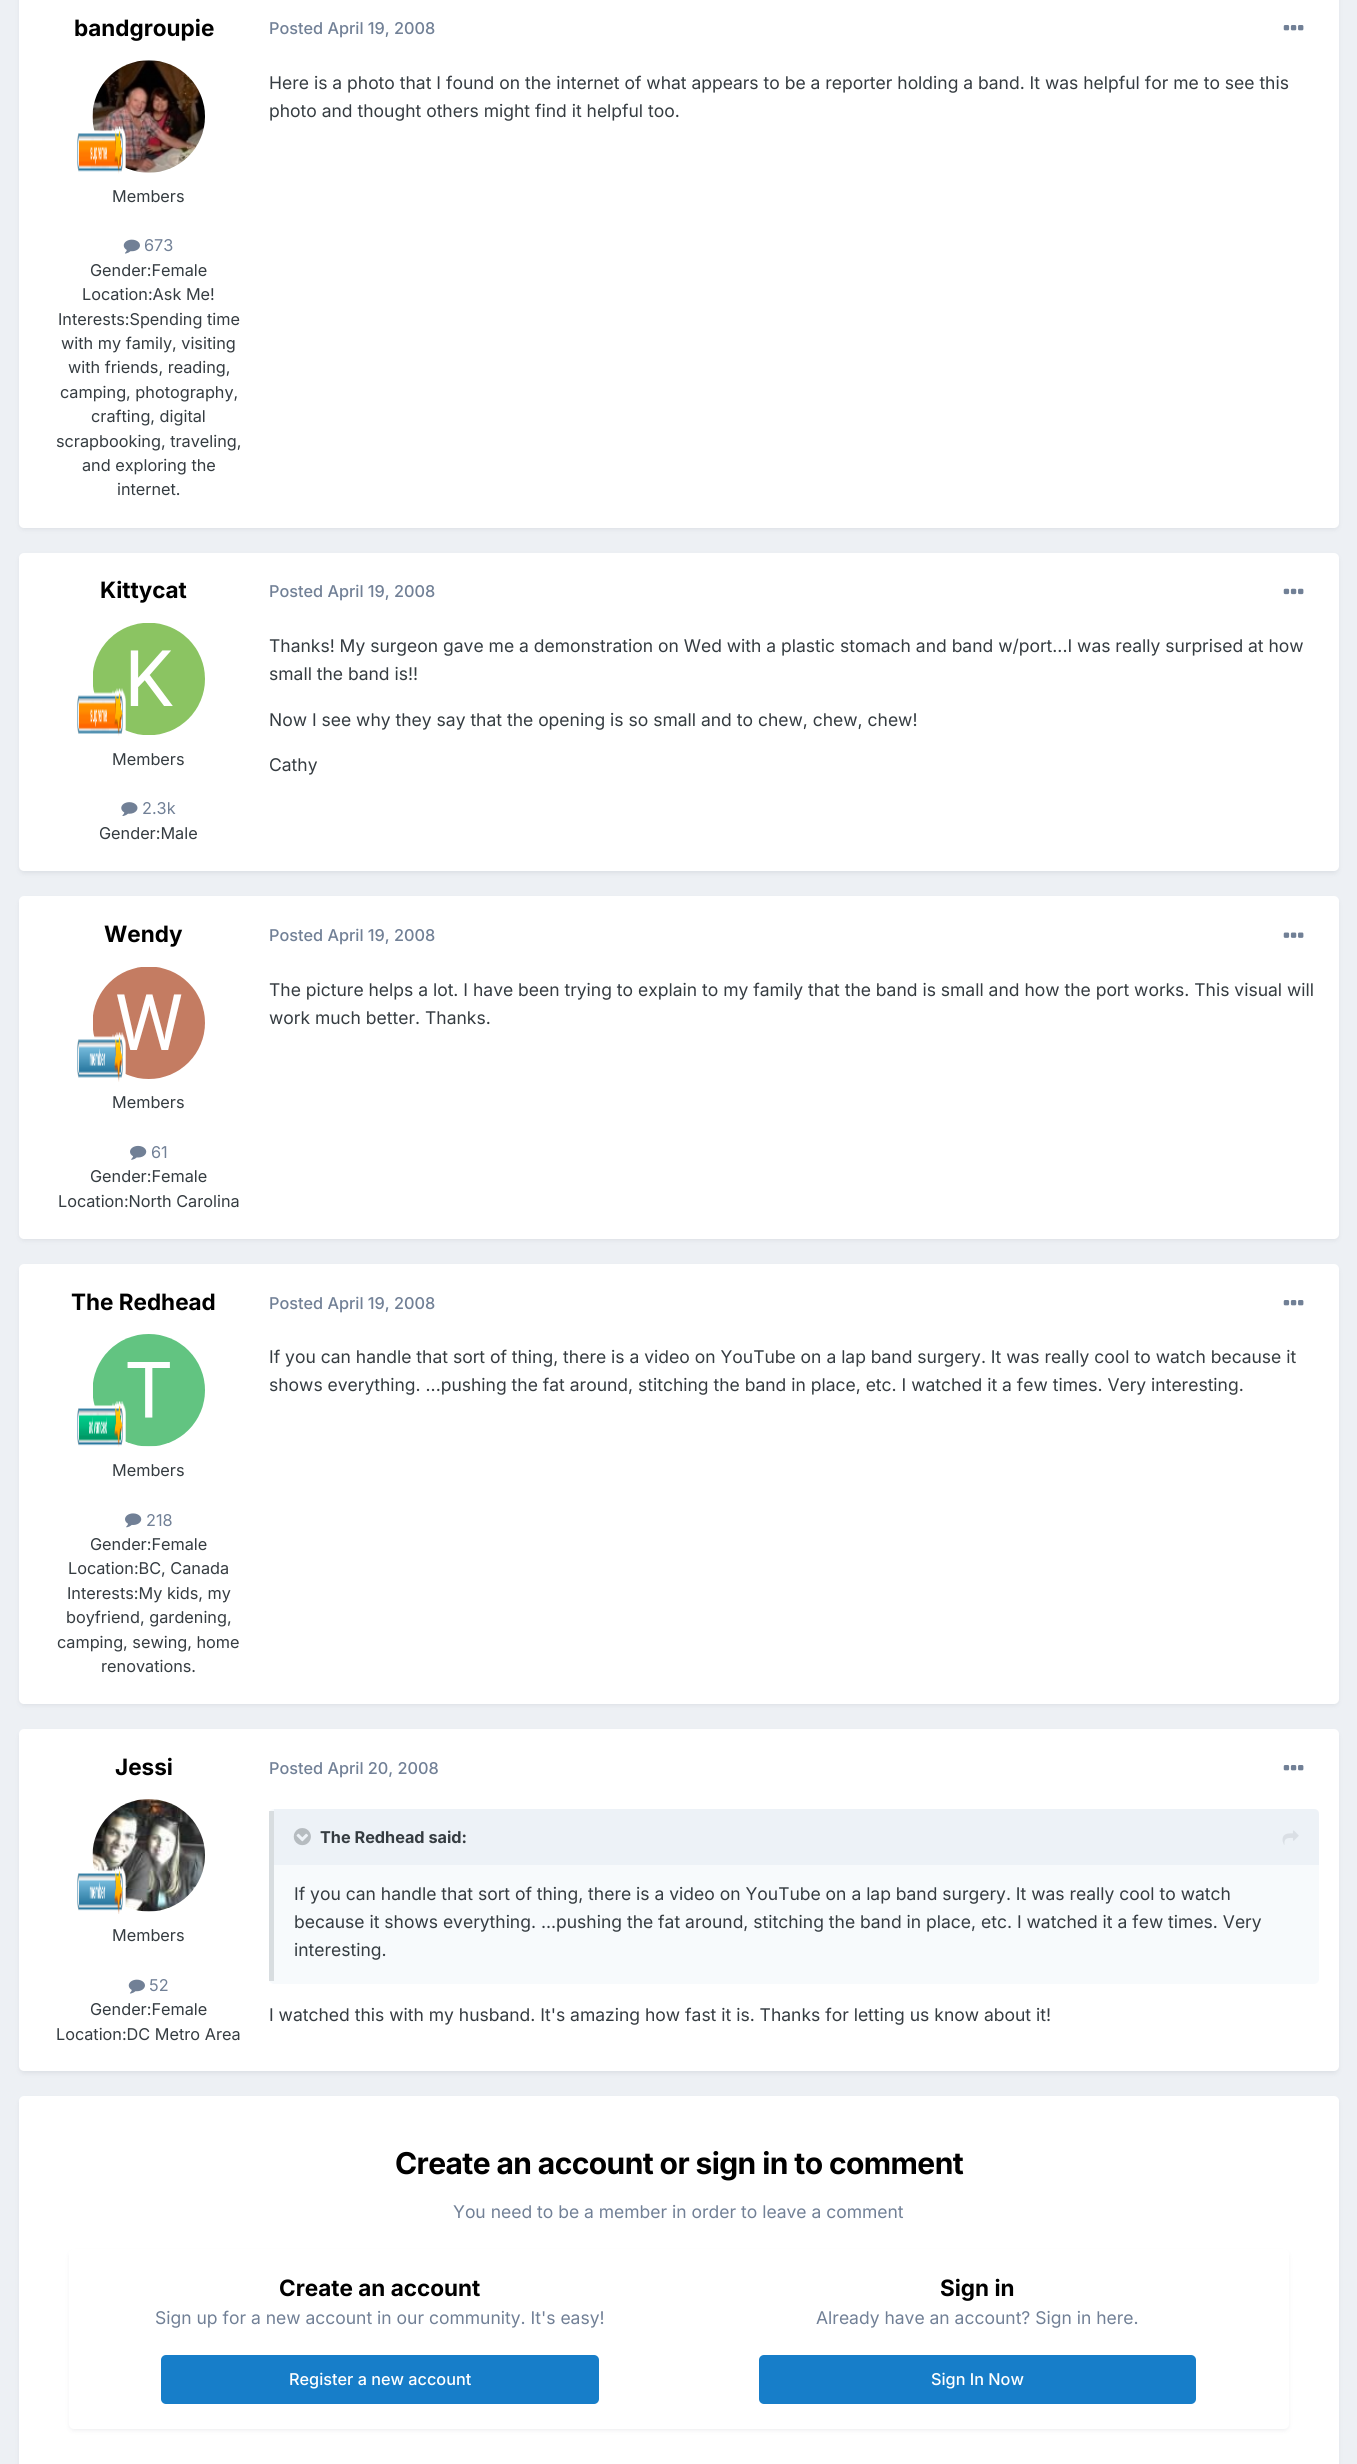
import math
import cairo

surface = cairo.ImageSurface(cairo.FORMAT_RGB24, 1357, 2464)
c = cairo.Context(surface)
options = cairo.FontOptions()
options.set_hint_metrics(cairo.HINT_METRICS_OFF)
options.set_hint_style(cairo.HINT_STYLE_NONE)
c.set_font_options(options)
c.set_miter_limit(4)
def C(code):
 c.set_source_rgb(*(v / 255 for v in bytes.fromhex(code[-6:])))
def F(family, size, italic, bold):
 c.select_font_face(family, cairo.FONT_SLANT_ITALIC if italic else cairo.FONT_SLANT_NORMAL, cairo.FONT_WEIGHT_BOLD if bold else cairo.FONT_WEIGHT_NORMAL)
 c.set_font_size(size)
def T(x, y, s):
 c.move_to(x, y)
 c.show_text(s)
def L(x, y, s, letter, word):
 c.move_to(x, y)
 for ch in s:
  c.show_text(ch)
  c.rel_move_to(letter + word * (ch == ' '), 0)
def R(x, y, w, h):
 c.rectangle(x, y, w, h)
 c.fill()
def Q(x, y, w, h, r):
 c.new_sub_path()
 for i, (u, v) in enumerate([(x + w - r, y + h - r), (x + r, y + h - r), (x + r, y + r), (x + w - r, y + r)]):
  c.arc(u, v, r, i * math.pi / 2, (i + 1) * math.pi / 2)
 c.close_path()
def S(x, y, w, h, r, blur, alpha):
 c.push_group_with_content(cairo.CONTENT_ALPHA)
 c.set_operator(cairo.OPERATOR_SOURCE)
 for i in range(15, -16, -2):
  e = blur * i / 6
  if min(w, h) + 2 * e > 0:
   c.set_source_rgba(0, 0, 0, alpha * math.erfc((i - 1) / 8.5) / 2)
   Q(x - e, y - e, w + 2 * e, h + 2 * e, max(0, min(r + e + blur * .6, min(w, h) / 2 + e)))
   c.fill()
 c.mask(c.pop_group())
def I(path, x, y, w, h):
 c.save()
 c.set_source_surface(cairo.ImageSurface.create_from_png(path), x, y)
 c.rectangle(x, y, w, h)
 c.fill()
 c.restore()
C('edf0f4')
c.paint()
C('2d3748')
S(20,-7,1318,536,4,2.5,.1)
C('ffffff')
Q(19,-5,1320,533,5)
c.fill()
F('Inter',22.5,0,1)
C('000000')
T(74,36,'bandgroupie')
I('1.png',92,60,113,113)
I('2.png',77,126,49,48)
F('Inter',16.25,0,0)
C('353c41')
T(112,202,'Members')
I('3.png',123,239,17,15)
C('718096')
T(144,251,'673')
C('353c41')
T(90,276,'Gender:Female')
T(82,300,'Location:Ask Me!')
T(58,325,'Interests:Spending time')
T(61,349,'with my family, visiting')
T(68,373,'with friends, reading,')
T(60,398,'camping, photography,')
T(91,422,'crafting, digital')
T(56,447,'scrapbooking, traveling,')
T(82,471,'and exploring the')
T(117,495,'internet.')
F('Inter Medium',16.25,0,0)
C('718096')
T(269,34,'Posted April 19, 2008')
I('4.png',1283,25,21,6)
F('Inter',17.5,0,0)
C('353c41')
T(269,89,'Here is a photo that I found on the internet of what appears to be a reporter holding a band. It was helpful for me to see this')
T(269,117,'photo and thought others might find it helpful too.')
C('2d3748')
S(20,556,1318,317,4,2.5,.1)
C('ffffff')
Q(19,553,1320,318,5)
c.fill()
F('Inter',22.5,0,1)
C('000000')
T(100,598,'Kittycat')
I('5.png',93,623,112,112)
I('6.png',77,688,49,48)
F('Inter',16.25,0,0)
C('353c41')
T(112,765,'Members')
I('7.png',121,802,17,14)
C('718096')
T(142,814,'2.3k')
C('353c41')
T(99,839,'Gender:Male')
F('Inter Medium',16.25,0,0)
C('718096')
T(269,597,'Posted April 19, 2008')
I('8.png',1283,588,21,7)
F('Inter',17.5,0,0)
C('353c41')
T(269,652,'Thanks! My surgeon gave me a demonstration on Wed with a plastic stomach and band w/port...I was really surprised at how')
T(269,680,'small the band is!!')
T(269,726,'Now I see why they say that the opening is so small and to chew, chew, chew!')
T(269,771,'Cathy')
C('2d3748')
S(20,900,1318,340,4,2.5,.1)
C('ffffff')
Q(19,896,1320,343,5)
c.fill()
F('Inter',22.5,0,1)
C('000000')
T(104,942,'Wendy')
I('9.png',93,967,112,112)
I('10.png',77,1032,49,50)
F('Inter',16.25,0,0)
C('353c41')
T(112,1108,'Members')
I('11.png',130,1145,17,15)
C('718096')
T(151,1158,'61')
C('353c41')
T(90,1182,'Gender:Female')
T(58,1207,'Location:North Carolina')
F('Inter Medium',16.25,0,0)
C('718096')
T(269,941,'Posted April 19, 2008')
I('12.png',1283,932,21,6)
F('Inter',17.5,0,0)
C('353c41')
T(269,996,'The picture helps a lot. I have been trying to explain to my family that the band is small and how the port works. This visual will')
T(269,1024,'work much better. Thanks.')
C('2d3748')
S(20,1268,1318,437,4,2.5,.1)
C('ffffff')
Q(19,1264,1320,440,5)
c.fill()
F('Inter',22.5,0,1)
C('000000')
T(71,1310,'The Redhead')
I('13.png',93,1334,112,113)
I('14.png',77,1401,49,46)
F('Inter',16.25,0,0)
C('353c41')
T(112,1476,'Members')
I('15.png',125,1513,17,15)
C('718096')
T(146,1526,'218')
C('353c41')
T(90,1550,'Gender:Female')
T(68,1574,'Location:BC, Canada')
T(67,1599,'Interests:My kids, my')
T(66,1623,'boyfriend, gardening,')
T(57,1648,'camping, sewing, home')
T(101,1672,'renovations.')
F('Inter Medium',16.25,0,0)
C('718096')
T(269,1309,'Posted April 19, 2008')
I('4.png',1283,1300,21,6)
F('Inter',17.5,0,0)
C('353c41')
T(269,1363,'If you can handle that sort of thing, there is a video on YouTube on a lap band surgery. It was really cool to watch because it')
T(269,1391,'shows everything. ...pushing the fat around, stitching the band in place, etc. I watched it a few times. Very interesting.')
C('2d3748')
S(20,1733,1318,340,4,2.5,.1)
C('ffffff')
Q(19,1729,1320,342,5)
c.fill()
F('Inter',22.5,0,1)
C('000000')
T(115,1775,'Jessi')
I('16.png',92,1799,113,113)
I('17.png',77,1866,49,48)
F('Inter',16.25,0,0)
C('353c41')
T(112,1941,'Members')
I('3.png',128,1979,17,15)
C('718096')
T(149,1991,'52')
C('353c41')
T(90,2015,'Gender:Female')
T(56,2040,'Location:DC Metro Area')
F('Inter Medium',16.25,0,0)
C('718096')
T(269,1774,'Posted April 20, 2008')
I('4.png',1283,1765,21,6)
C('f7fafc')
Q(269,1809,1050,175,5)
c.fill()
c.set_source_rgba(0.176,0.216,0.282,0.15)
R(269,1811,5,170)
C('edf2f7')
c.new_path()
c.move_to(274,1809)
c.line_to(1314,1809)
c.curve_to(1317,1809,1319,1811,1319,1814)
c.line_to(1319,1865)
c.line_to(274,1865)
c.close_path()
c.fill()
I('18.png',293,1828,18,18)
F('Inter',16.25,0,1)
C('353c41')
T(320,1843,'The Redhead said:')
I('19.png',1282,1830,17,15)
F('Inter',17.5,0,0)
T(294,1900,'If you can handle that sort of thing, there is a video on YouTube on a lap band surgery. It was really cool to watch')
T(294,1928,'because it shows everything. ...pushing the fat around, stitching the band in place, etc. I watched it a few times. Very')
T(294,1956,'interesting.')
T(269,2021,'I watched this with my husband. It\'s amazing how fast it is. Thanks for letting us know about it!')
C('2d3748')
S(20,2100,1318,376,4,2.5,.1)
C('ffffff')
Q(19,2096,1320,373,5)
c.fill()
F('Inter',30,0,1)
C('000000')
L(395,2174,'Create an account or sign in to comment',-.6,0)
F('Inter',17.5,0,0)
C('718096')
T(453,2218,'You need to be a member in order to leave a comment')
C('2d3748')
S(70,2253,1218,177,4,2.5,.1)
C('ffffff')
Q(69,2249,1220,180,5)
c.fill()
F('Inter',22.5,0,1)
C('000000')
T(279,2296,'Create an account')
F('Inter',17.5,0,0)
C('718096')
T(155,2324,'Sign up for a new account in our community. It\'s easy!')
C('177ec9')
Q(161,2355,438,49,5)
c.fill()
F('Inter Medium',16.25,0,0)
C('ffffff')
T(289,2385,'Register a new account')
F('Inter',22.5,0,1)
C('000000')
T(940,2296,'Sign in')
F('Inter',17.5,0,0)
C('718096')
T(816,2324,'Already have an account? Sign in here.')
C('177ec9')
Q(759,2355,437,49,5)
c.fill()
F('Inter Medium',16.25,0,0)
C('ffffff')
T(931,2385,'Sign In Now')
surface.write_to_png('o.png')
